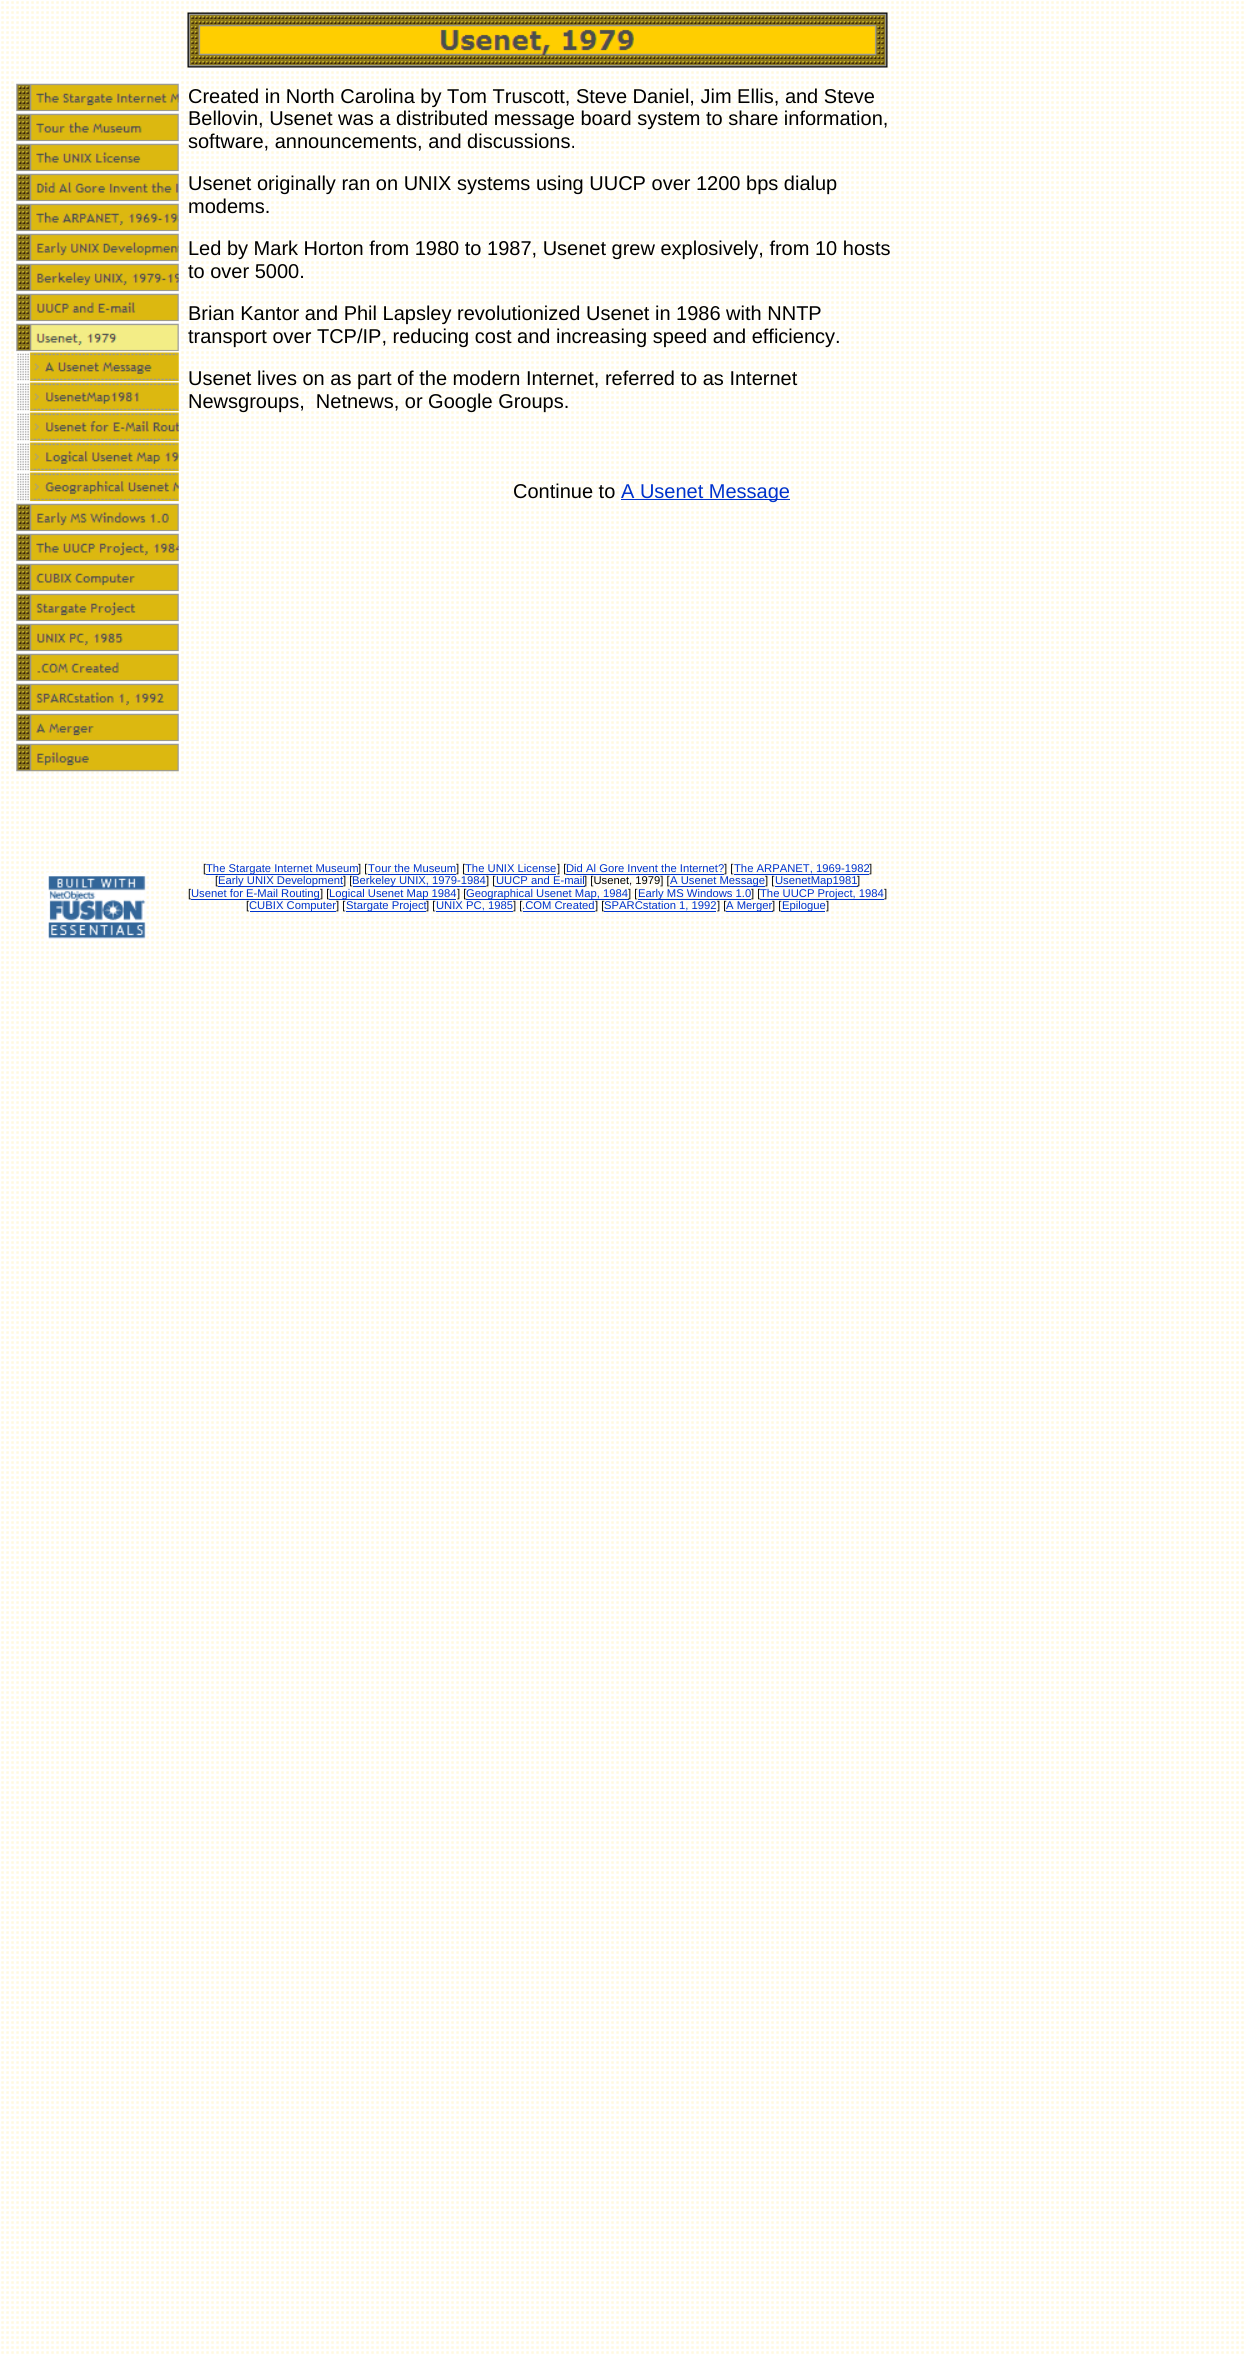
import math
import cairo

surface = cairo.ImageSurface(cairo.FORMAT_RGB24, 1245, 2355)
c = cairo.Context(surface)
options = cairo.FontOptions()
options.set_hint_metrics(cairo.HINT_METRICS_OFF)
options.set_hint_style(cairo.HINT_STYLE_NONE)
c.set_font_options(options)
c.set_miter_limit(4)
def C(code):
 c.set_source_rgb(*(v / 255 for v in bytes.fromhex(code[-6:])))
def F(family, size, italic, bold):
 c.select_font_face(family, cairo.FONT_SLANT_ITALIC if italic else cairo.FONT_SLANT_NORMAL, cairo.FONT_WEIGHT_BOLD if bold else cairo.FONT_WEIGHT_NORMAL)
 c.set_font_size(size)
def T(x, y, s):
 c.move_to(x, y)
 c.show_text(s)
def R(x, y, w, h):
 c.rectangle(x, y, w, h)
 c.fill()
def I(path, x, y, w, h):
 c.save()
 c.set_source_surface(cairo.ImageSurface.create_from_png(path), x, y)
 c.rectangle(x, y, w, h)
 c.fill()
 c.restore()
C('ffffff')
c.paint()
I('1.png',1,1,1243,2353)
I('2.png',16,81,163,31)
I('3.png',16,111,163,31)
I('4.png',16,141,163,31)
I('5.png',16,171,163,31)
I('6.png',16,201,163,31)
I('7.png',16,231,163,31)
I('8.png',16,261,163,31)
I('9.png',16,291,163,31)
I('10.png',16,321,163,31)
I('11.png',16,351,163,31)
I('12.png',16,381,163,31)
I('13.png',16,411,163,31)
I('14.png',16,441,163,31)
I('15.png',16,471,163,31)
I('16.png',16,501,163,31)
I('17.png',16,531,163,31)
I('18.png',16,561,163,31)
I('19.png',16,591,163,31)
I('20.png',16,621,163,31)
I('21.png',16,651,163,31)
I('22.png',16,681,163,31)
I('23.png',16,711,163,31)
I('24.png',16,741,163,31)
I('25.png',46,872,101,70)
I('26.png',187,12,701,57)
F('Liberation Sans',20,0,0)
C('000000')
T(188,103,'Created in North Carolina by Tom Truscott, Steve Daniel, Jim Ellis, and Steve')
T(188,125,'Bellovin, Usenet was a distributed message board system to share information,')
T(188,148,'software, announcements, and discussions.')
T(188,190,'Usenet originally ran on UNIX systems using UUCP over 1200 bps dialup')
T(188,213,'modems.')
T(188,255,'Led by Mark Horton from 1980 to 1987, Usenet grew explosively, from 10 hosts')
T(188,278,'to over 5000.')
T(188,320,'Brian Kantor and Phil Lapsley revolutionized Usenet in 1986 with NNTP')
T(188,343,'transport over TCP/IP, reducing cost and increasing speed and efficiency.')
T(188,385,'Usenet lives on as part of the modern Internet, referred to as Internet')
T(188,408,'Newsgroups,  Netnews, or Google Groups.')
T(513,498,'Continue to')
C('0033cc')
R(621,499,169,1)
T(621,498,'A Usenet Message')
F('Liberation Sans',11.25,0,0)
C('000000')
T(203,872,'[')
C('0033cc')
R(206,874,153,1)
T(206,872,'The Stargate Internet Museum')
C('000000')
T(358,872,'] [')
C('0033cc')
T(368,872,'Tour the Museum')
R(368,874,88,1)
C('000000')
T(456,872,'] [')
C('0033cc')
T(465,872,'The UNIX License')
R(465,874,91,1)
C('000000')
T(557,872,'] [')
C('0033cc')
T(566,872,'Did Al Gore Invent the Internet?')
R(566,874,158,1)
C('000000')
T(724,872,'] [')
C('0033cc')
T(734,872,'The ARPANET, 1969-1982')
R(734,874,135,1)
C('000000')
T(869,872,']')
T(215,884,'[')
C('0033cc')
R(218,886,125,1)
T(218,884,'Early UNIX Development')
C('000000')
T(343,884,'] [')
C('0033cc')
R(353,886,133,1)
T(352,884,'Berkeley UNIX, 1979-1984')
C('000000')
T(486,884,'] [')
C('0033cc')
T(496,884,'UUCP and E-mail')
R(495,886,90,1)
C('000000')
T(584,884,'] [Usenet, 1979] [')
C('0033cc')
R(670,886,95,1)
T(670,884,'A Usenet Message')
C('000000')
T(765,884,'] [')
C('0033cc')
R(775,886,83,1)
T(775,884,'UsenetMap1981')
C('000000')
T(857,884,']')
T(188,897,'[')
C('0033cc')
R(191,899,129,1)
T(191,897,'Usenet for E-Mail Routing')
C('000000')
T(320,897,'] [')
C('0033cc')
R(329,899,127,1)
T(329,897,'Logical Usenet Map 1984')
C('000000')
T(457,897,'] [')
C('0033cc')
R(466,899,163,1)
T(466,897,'Geographical Usenet Map, 1984')
C('000000')
T(628,897,'] [')
C('0033cc')
R(638,899,113,1)
T(638,897,'Early MS Windows 1.0')
C('000000')
T(751,897,'] [')
C('0033cc')
R(760,899,124,1)
T(760,897,'The UUCP Project, 1984')
C('000000')
T(884,897,']')
T(246,909,'[')
C('0033cc')
R(250,911,86,1)
T(249,909,'CUBIX Computer')
C('000000')
T(336,909,'] [')
C('0033cc')
R(346,911,80,1)
T(346,909,'Stargate Project')
C('000000')
T(426,909,'] [')
C('0033cc')
T(436,909,'UNIX PC, 1985')
R(436,911,77,1)
C('000000')
T(513,909,'] [')
C('0033cc')
T(522,909,'.COM Created')
R(523,911,72,1)
C('000000')
T(595,909,'] [')
C('0033cc')
T(604,909,'SPARCstation 1, 1992')
R(604,911,112,1)
C('000000')
T(717,909,'] [')
C('0033cc')
R(726,911,47,1)
T(726,909,'A Merger')
C('000000')
T(772,909,'] [')
C('0033cc')
R(781,911,44,1)
T(782,909,'Epilogue')
C('000000')
T(826,909,']')
surface.write_to_png('o.png')
